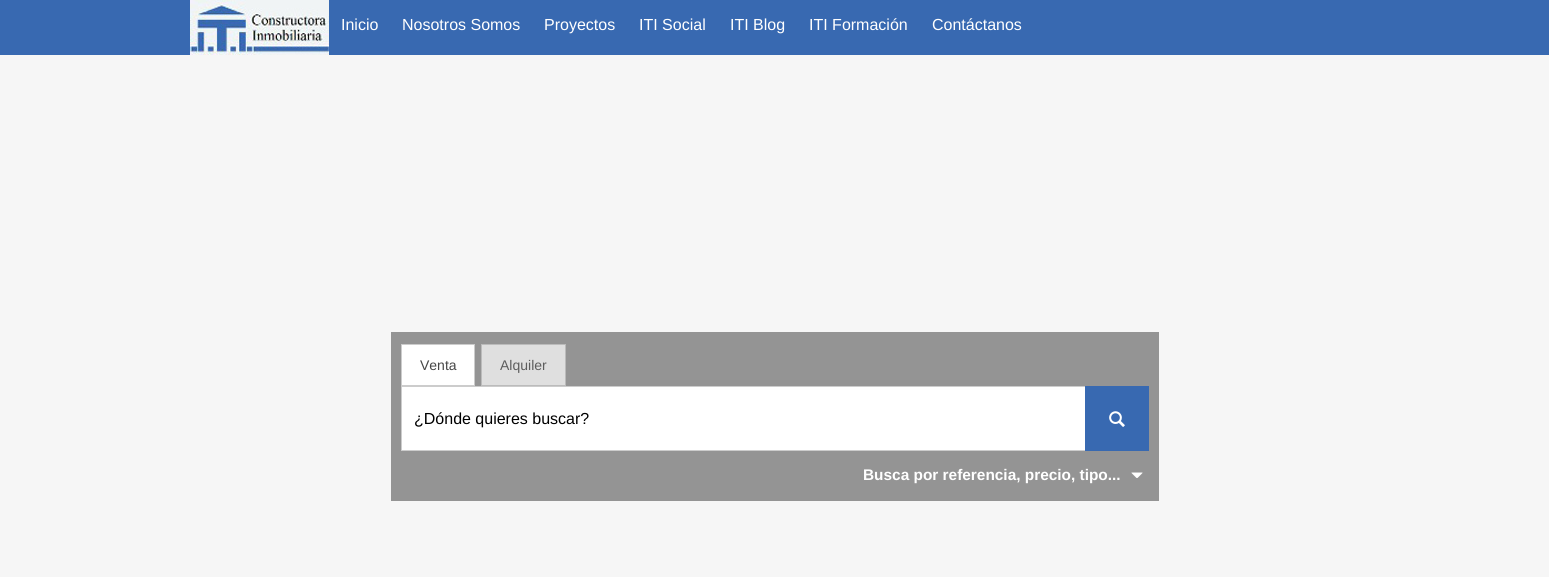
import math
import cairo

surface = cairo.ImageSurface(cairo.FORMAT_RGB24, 1549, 577)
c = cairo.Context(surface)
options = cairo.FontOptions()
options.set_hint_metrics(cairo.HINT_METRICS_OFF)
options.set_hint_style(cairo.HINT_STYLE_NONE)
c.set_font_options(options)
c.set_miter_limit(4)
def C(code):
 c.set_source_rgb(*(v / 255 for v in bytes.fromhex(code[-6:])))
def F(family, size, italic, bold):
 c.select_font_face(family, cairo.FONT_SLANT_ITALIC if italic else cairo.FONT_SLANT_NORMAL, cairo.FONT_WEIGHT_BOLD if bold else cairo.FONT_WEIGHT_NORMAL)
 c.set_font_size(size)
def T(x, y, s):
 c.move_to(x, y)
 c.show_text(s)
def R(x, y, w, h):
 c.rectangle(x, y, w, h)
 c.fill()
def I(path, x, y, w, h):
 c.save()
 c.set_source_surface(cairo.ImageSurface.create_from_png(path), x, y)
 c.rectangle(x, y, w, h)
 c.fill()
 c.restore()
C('f6f6f6')
c.paint()
C('3869b1')
R(0,0,1549,55)
I('1.png',190,0,139,55)
F('Liberation Sans',16,0,0)
C('ffffff')
T(341,30,'Inicio')
T(402,30,'Nosotros Somos')
T(544,30,'Proyectos')
T(639,30,'ITI Social')
T(730,30,'ITI Blog')
T(809,30,'ITI Formación')
T(932,30,'Contáctanos')
C('949494')
R(391,332,768,169)
C('ffffff')
c.rectangle(401.5,344.5,73,41)
c.fill_preserve()
C('cccccc')
c.set_line_width(1)
c.stroke()
F('Liberation Sans',14,0,0)
C('464646')
T(420,370,'Venta')
C('dfdfdf')
c.rectangle(481.5,344.5,84,41)
c.fill_preserve()
C('bbbbbb')
c.stroke()
C('5d5d5d')
T(500,370,'Alquiler')
C('ffffff')
R(402,387,683,63)
c.rectangle(401.5,386.5,747,64)
C('cccccc')
c.stroke()
F('Liberation Sans',16,0,0)
C('000000')
T(414,424,'¿Dónde quieres buscar?')
C('3869b1')
R(1085,386,64,65)
I('2.png',1109,411,16,16)
F('Liberation Sans',15.4,0,1)
C('ffffff')
T(863,480,'Busca por referencia, precio, tipo...')
I('3.png',1131,472,12,6)
surface.write_to_png('o.png')
